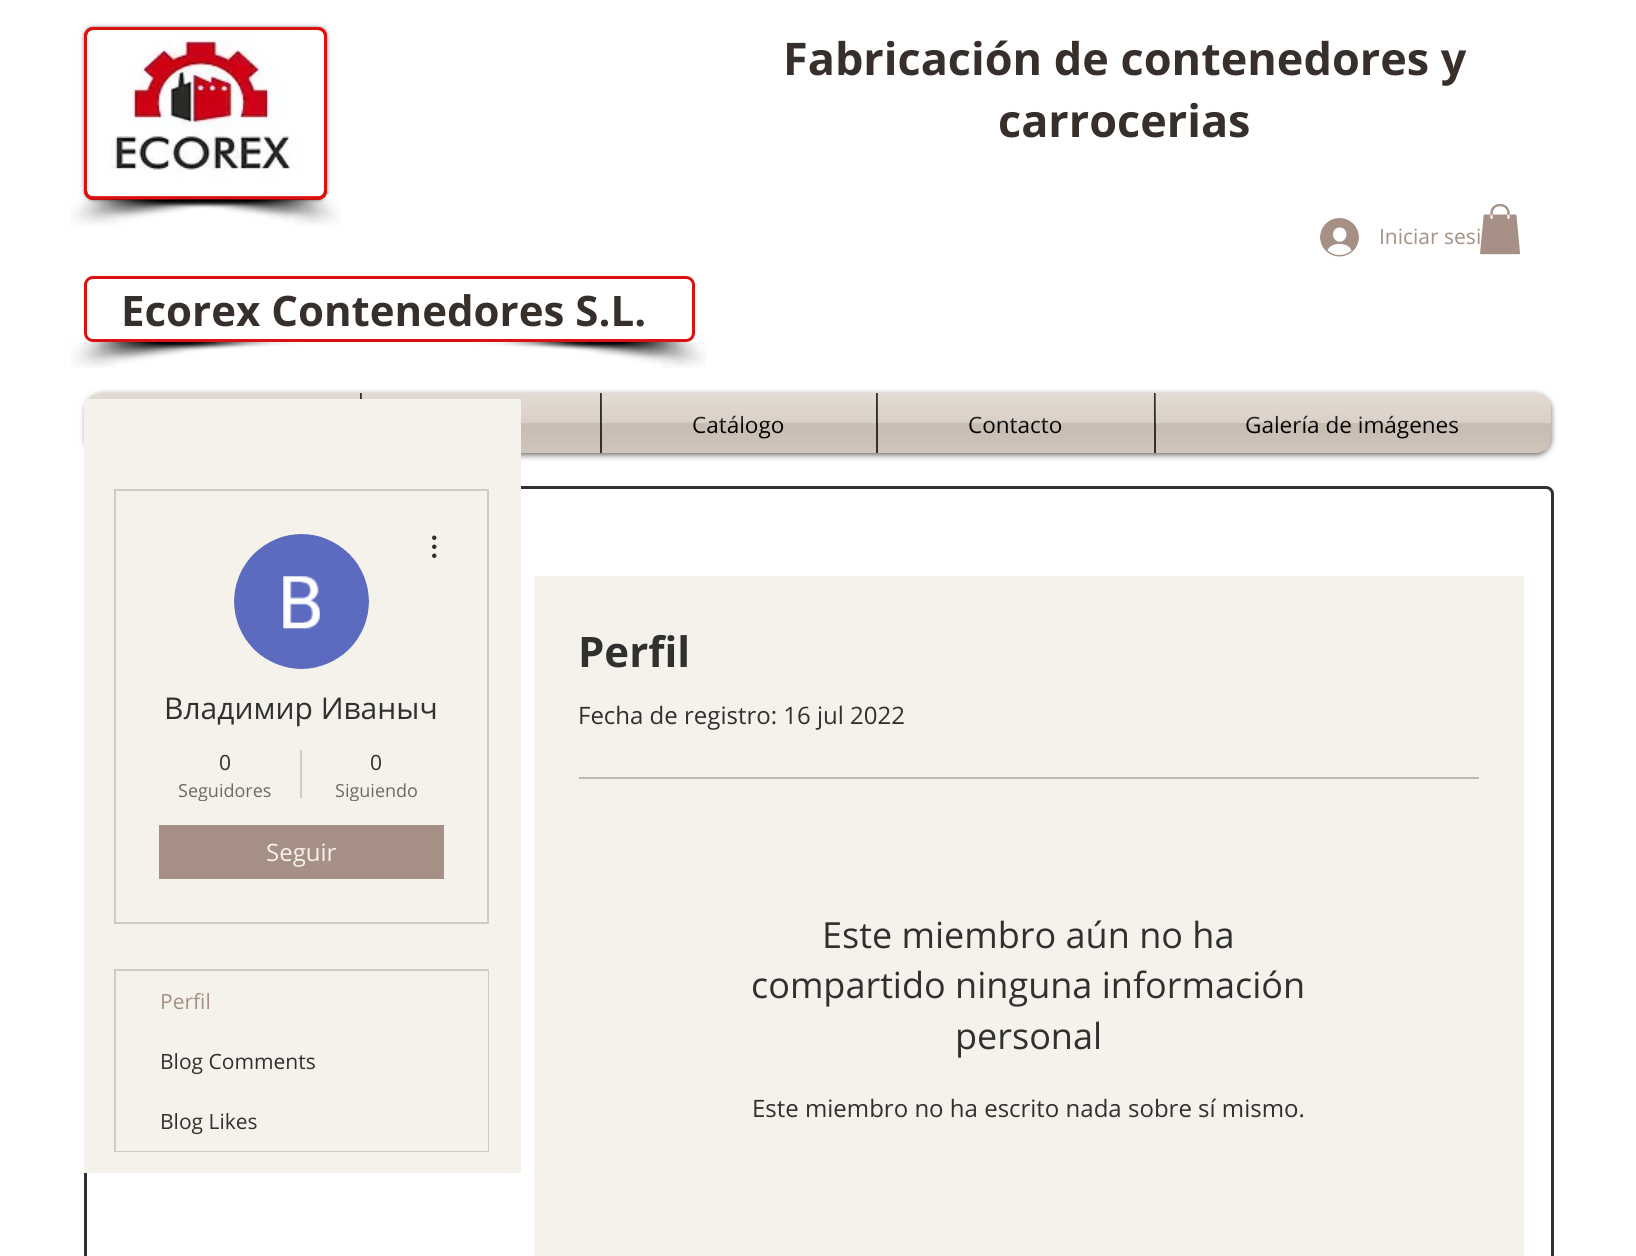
import math
import cairo

surface = cairo.ImageSurface(cairo.FORMAT_RGB24, 1636, 1256)
c = cairo.Context(surface)
options = cairo.FontOptions()
options.set_hint_metrics(cairo.HINT_METRICS_OFF)
options.set_hint_style(cairo.HINT_STYLE_NONE)
c.set_font_options(options)
c.set_miter_limit(4)
def C(code):
 c.set_source_rgb(*(v / 255 for v in bytes.fromhex(code[-6:])))
def F(family, size, italic, bold):
 c.select_font_face(family, cairo.FONT_SLANT_ITALIC if italic else cairo.FONT_SLANT_NORMAL, cairo.FONT_WEIGHT_BOLD if bold else cairo.FONT_WEIGHT_NORMAL)
 c.set_font_size(size)
def T(x, y, s):
 c.move_to(x, y)
 c.show_text(s)
def R(x, y, w, h):
 c.rectangle(x, y, w, h)
 c.fill()
def Q(x, y, w, h, r):
 c.new_sub_path()
 for i, (u, v) in enumerate([(x + w - r, y + h - r), (x + r, y + h - r), (x + r, y + r), (x + w - r, y + r)]):
  c.arc(u, v, r, i * math.pi / 2, (i + 1) * math.pi / 2)
 c.close_path()
def S(x, y, w, h, r, blur, alpha):
 c.push_group_with_content(cairo.CONTENT_ALPHA)
 c.set_operator(cairo.OPERATOR_SOURCE)
 for i in range(15, -16, -2):
  e = blur * i / 6
  if min(w, h) + 2 * e > 0:
   c.set_source_rgba(0, 0, 0, alpha * math.erfc((i - 1) / 8.5) / 2)
   Q(x - e, y - e, w + 2 * e, h + 2 * e, max(0, min(r + e + blur * .6, min(w, h) / 2 + e)))
   c.fill()
 c.mask(c.pop_group())
def I(path, x, y, w, h):
 c.save()
 c.set_source_surface(cairo.ImageSurface.create_from_png(path), x, y)
 c.rectangle(x, y, w, h)
 c.fill()
 c.restore()
C('ffffff')
c.paint()
c.save()
c.set_fill_rule(cairo.FILL_RULE_EVEN_ODD)
c.new_path()
c.move_to(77,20)
c.line_to(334,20)
c.line_to(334,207)
c.line_to(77,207)
c.close_path()
c.move_to(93,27)
c.line_to(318,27)
c.curve_to(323,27,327,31,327,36)
c.line_to(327,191)
c.curve_to(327,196,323,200,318,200)
c.line_to(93,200)
c.curve_to(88,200,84,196,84,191)
c.line_to(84,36)
c.curve_to(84,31,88,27,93,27)
c.close_path()
c.clip()
C('000000')
S(84,27,243,173,9,2,.5)
c.restore()
c.set_source_rgba(0.867,0.067,0.067,0.99)
Q(84,27,243,173,9)
c.fill()
Q(85.5,28.5,240,170,7.5)
c.set_line_width(3)
c.stroke()
I('1.png',87,30,237,167)
I('2.png',71,199,223,27)
I('3.png',133,199,207,27)
F('Open Sans',45,0,1)
C('372f2c')
T(783,75,'Fabricación de contenedores y')
T(998,137,'carrocerias')
I('4.png',1320,218,39,39)
F('Open Sans',21,0,0)
C('a68f85')
T(1379,244,'Iniciar sesi')
I('5.png',1480,204,40,51)
Q(85.5,277.5,608,63,7.5)
C('dd1111')
c.stroke()
F('Open Sans',42,0,1)
C('372f2c')
T(121,326,'Ecorex Contenedores S.L.')
I('6.png',71,342,230,26)
I('7.png',477,342,230,26)
C('000000')
S(86,395,1465,60,15,3,.6)
I('8.png',89,393,1462,58)
C('d6cabf')
c.new_path()
c.move_to(101,393)
c.line_to(360,393)
c.line_to(360,453)
c.line_to(101,453)
c.curve_to(92.5,453,86,446.5,86,438)
c.line_to(86,408)
c.curve_to(86,399.5,92.5,393,101,393)
c.close_path()
c.fill()
I('9.png',89,393,271,6)
R(362,393,238,60)
C('30302f')
R(360,393,2,6)
I('10.png',361,393,239,60)
C('d6cabf')
R(602,393,274,60)
C('30302f')
R(600,393,2,60)
F('Open Sans',22.5,0,0)
C('000000')
T(692,433,'Catálogo')
I('11.png',601,393,275,60)
C('d6cabf')
R(878,393,276,60)
C('30302f')
R(876,393,2,60)
C('000000')
T(968,433,'Contacto')
I('12.png',877,393,277,60)
C('d6cabf')
c.new_path()
c.move_to(1154,393)
c.line_to(1536,393)
c.curve_to(1544.5,393,1551,399.5,1551,408)
c.line_to(1551,438)
c.curve_to(1551,446.5,1544.5,453,1536,453)
c.line_to(1154,453)
c.close_path()
c.fill()
C('30302f')
R(1154,393,2,60)
C('000000')
T(1245,433,'Galería de imágenes')
I('13.png',1155,393,396,60)
Q(85.5,487.5,1467,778,6.5)
C('30302f')
c.stroke()
C('f4f2eb')
R(84,399,437,774)
c.rectangle(115,490,373,433)
C('cdcbc5')
c.set_line_width(2)
c.stroke()
C('d8d8d8')
c.arc(301.5,601.5,67.5,0,2 * math.pi)
c.fill()
I('14.png',234,534,135,135)
I('15.png',432,535,5,23)
F('Open Sans',30,0,0)
C('30302f')
T(164,719,'Владимир Иваныч')
F('Open Sans',21,0,0)
T(219,770,'0')
c.save()
c.rectangle(179,777,93,24)
c.clip()
F('Open Sans',18,0,0)
C('6b6a67')
T(178,797,'Seguidores')
c.restore()
C('cdcbc5')
R(300,750,2,48)
C('30302f')
T(370,770,'0')
c.save()
c.rectangle(335,777,84,24)
c.clip()
F('Open Sans',18,0,0)
C('6b6a67')
T(335,797,'Siguiendo')
c.restore()
C('a68f85')
R(159,825,285,54)
F('Open Sans',24,0,0)
C('f4f2eb')
T(266,861,'Seguir')
c.rectangle(115,970,373,181)
C('cdcbc5')
c.stroke()
C('f4f2eb')
R(487,971,1,120)
F('Open Sans',21,0,0)
C('a68f85')
T(160,1009,'Perfil')
C('30302f')
T(160,1069,'Blog Comments')
C('f4f2eb')
R(116,1091,372,60)
C('30302f')
T(160,1129,'Blog Likes')
C('f4f2eb')
R(534,576,990,680)
F('Open Sans',42,0,1)
C('30302f')
T(578,667,'Perfil')
F('Open Sans',24,0,0)
T(578,724,'Fecha de registro: 16 jul 2022')
C('b9b8b3')
R(579,777,900,2)
F('Open Sans',36,0,0)
C('30302f')
T(822,948,'Este miembro aún no ha')
T(751,998,'compartido ninguna información')
T(955,1049,'personal')
F('Open Sans',24,0,0)
T(752,1117,'Este miembro no ha escrito nada sobre sí mismo.')
surface.write_to_png('o.png')
